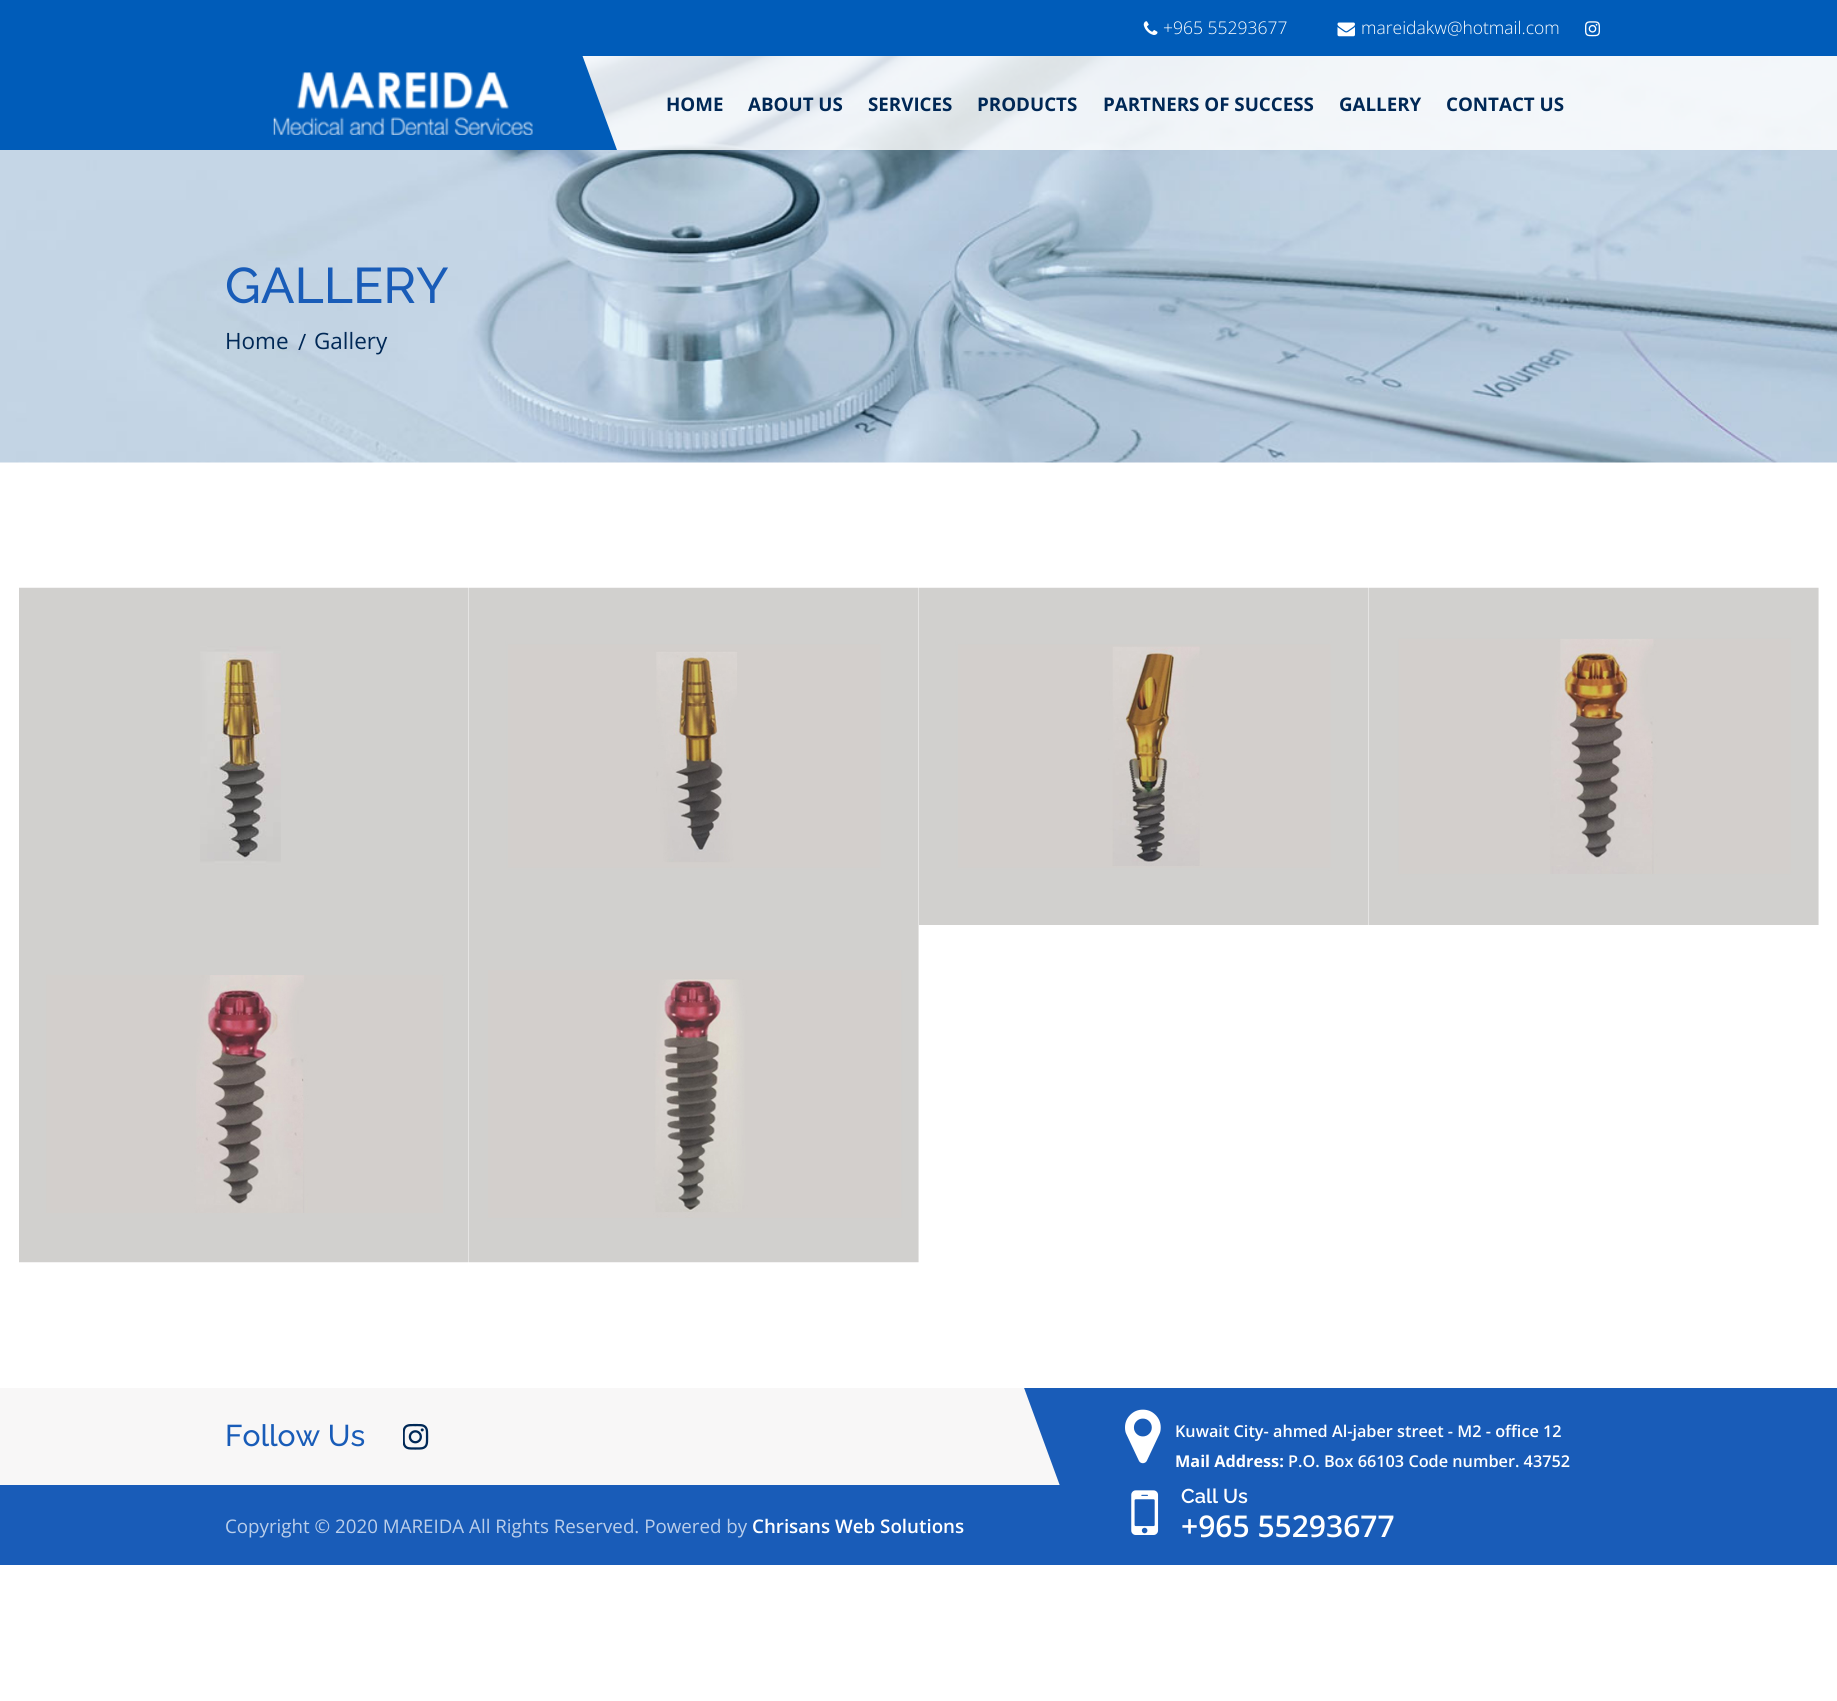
import math
import cairo

surface = cairo.ImageSurface(cairo.FORMAT_RGB24, 1837, 1701)
c = cairo.Context(surface)
options = cairo.FontOptions()
options.set_hint_metrics(cairo.HINT_METRICS_OFF)
options.set_hint_style(cairo.HINT_STYLE_NONE)
c.set_font_options(options)
c.set_miter_limit(4)
def C(code):
 c.set_source_rgb(*(v / 255 for v in bytes.fromhex(code[-6:])))
def F(family, size, italic, bold):
 c.select_font_face(family, cairo.FONT_SLANT_ITALIC if italic else cairo.FONT_SLANT_NORMAL, cairo.FONT_WEIGHT_BOLD if bold else cairo.FONT_WEIGHT_NORMAL)
 c.set_font_size(size)
def T(x, y, s):
 c.move_to(x, y)
 c.show_text(s)
def R(x, y, w, h):
 c.rectangle(x, y, w, h)
 c.fill()
def I(path, x, y, w, h):
 c.save()
 c.set_source_surface(cairo.ImageSurface.create_from_png(path), x, y)
 c.rectangle(x, y, w, h)
 c.fill()
 c.restore()
C('ffffff')
c.paint()
C('005cb9')
R(562,0,1275,56)
I('1.png',1143,21,15,14)
F('Open Sans Light',17.5,0,0)
C('ffffff')
T(1163,34,'+965 55293677')
I('2.png',1337,22,18,15)
T(1361,34,'mareidakw@hotmail.com')
I('3.png',1585,21,15,16)
I('5.png',0,56,1837,407)
c.set_source_rgba(1,1,1,0.8)
R(582,56,1255,94)
C('005cb9')
c.new_path()
c.move_to(-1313,0)
c.line_to(562,0)
c.line_to(617,150)
c.line_to(-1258,150)
c.close_path()
c.fill()
I('4.png',273,72,260,63)
F('Open Sans',18.75,0,1)
C('002856')
T(666,111,'HOME')
T(748,111,'ABOUT US')
T(868,111,'SERVICES')
T(977,111,'PRODUCTS')
T(1103,111,'PARTNERS OF SUCCESS')
T(1339,111,'GALLERY')
T(1446,111,'CONTACT US')
F('Raleway Medium',50,0,0)
C('195cb8')
T(225,303,'GALLERY')
F('Open Sans',22.5,0,0)
C('002856')
T(225,349,'Home')
T(298,350,'/')
T(314,349,'Gallery')
I('6.png',19,587,450,338)
I('7.png',469,587,450,338)
I('8.png',919,587,450,338)
I('9.png',1369,587,450,338)
I('10.png',19,925,450,338)
I('11.png',469,925,450,338)
C('195cb8')
R(0,1485,1089,80)
F('Open Sans',18.75,0,0)
C('baceea')
T(225,1533,'Copyright © 2020 MAREIDA All Rights Reserved. Powered by')
F('Open Sans SemiBold',18.75,0,0)
C('ffffff')
T(752,1533,'Chrisans Web Solutions')
C('f8f7f7')
R(0,1388,1060,97)
c.save()
c.rectangle(0,1388,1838,177)
c.clip()
C('195cb8')
c.new_path()
c.move_to(1023,1385)
c.line_to(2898,1385)
c.line_to(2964,1565)
c.line_to(1089,1565)
c.close_path()
c.fill()
c.restore()
I('12.png',1125,1409,36,55)
F('Open Sans SemiBold',16.25,0,0)
C('ffffff')
T(1175,1437,'Kuwait City- ahmed Al-jaber street - M2 - office 12')
F('Open Sans',16.25,0,1)
T(1175,1467,'Mail Address:')
F('Open Sans SemiBold',16.25,0,0)
T(1288,1467,'P.O. Box 66103 Code number. 43752')
I('13.png',1131,1490,28,45)
F('Raleway SemiBold',20,0,0)
T(1181,1503,'Call Us')
F('Open Sans SemiBold',30,0,0)
T(1181,1537,'+965 55293677')
F('Raleway Medium',30,0,0)
C('195cb8')
T(225,1446,'Follow Us')
I('14.png',403,1423,26,27)
surface.write_to_png('o.png')
